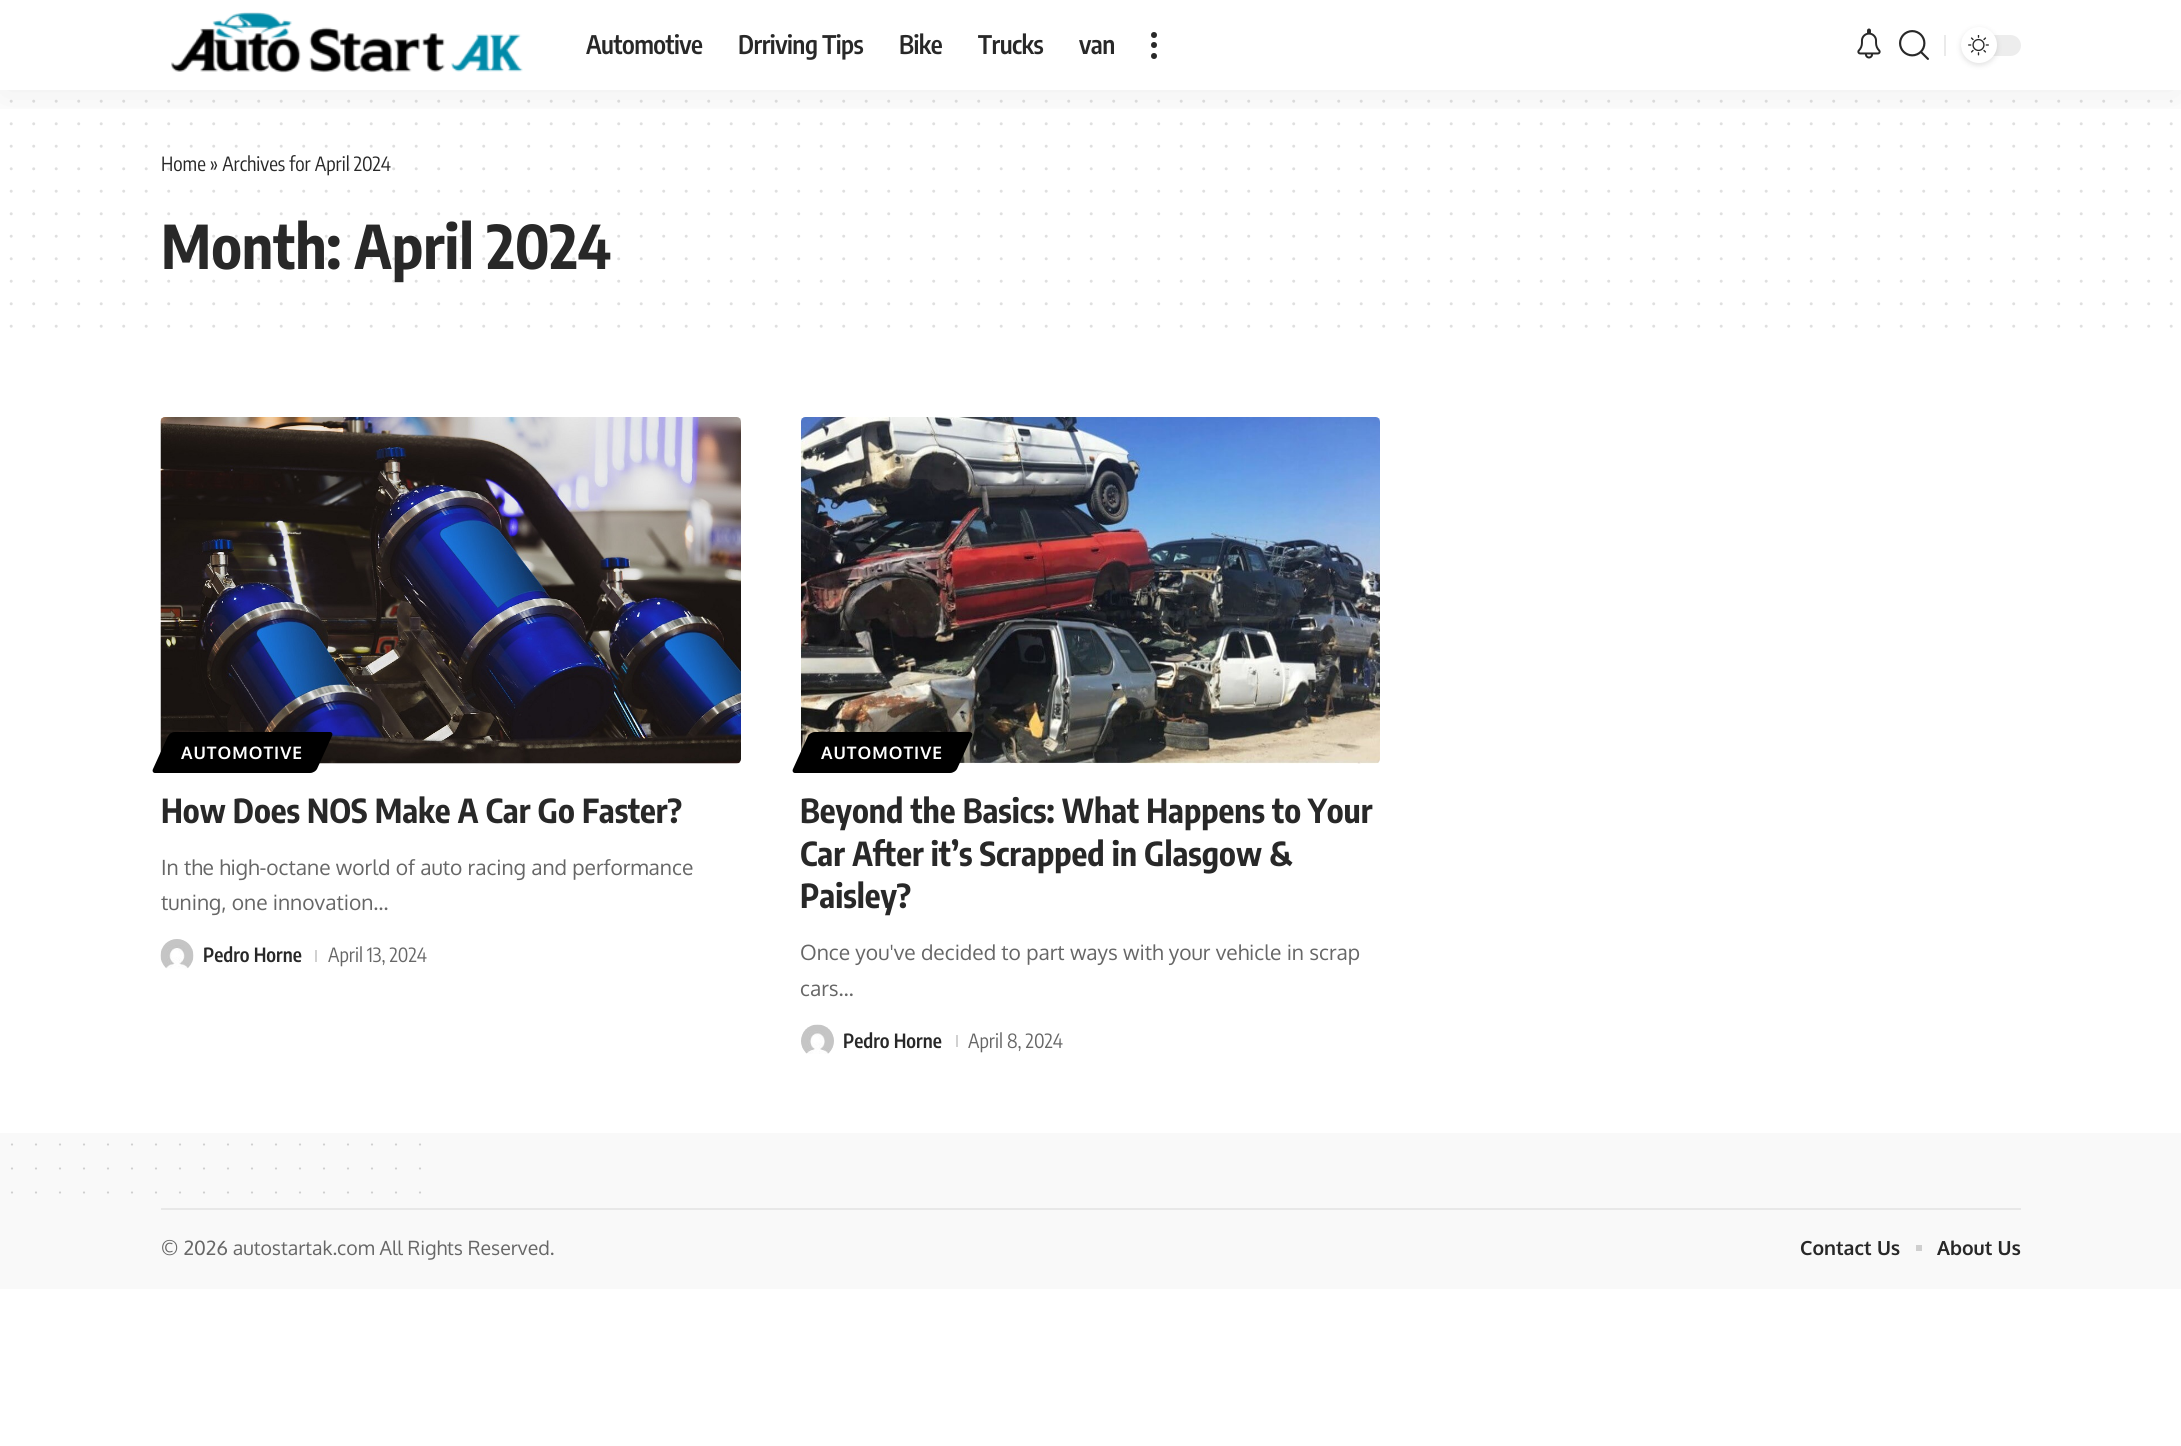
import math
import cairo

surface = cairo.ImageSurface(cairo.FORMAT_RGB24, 2181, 1446)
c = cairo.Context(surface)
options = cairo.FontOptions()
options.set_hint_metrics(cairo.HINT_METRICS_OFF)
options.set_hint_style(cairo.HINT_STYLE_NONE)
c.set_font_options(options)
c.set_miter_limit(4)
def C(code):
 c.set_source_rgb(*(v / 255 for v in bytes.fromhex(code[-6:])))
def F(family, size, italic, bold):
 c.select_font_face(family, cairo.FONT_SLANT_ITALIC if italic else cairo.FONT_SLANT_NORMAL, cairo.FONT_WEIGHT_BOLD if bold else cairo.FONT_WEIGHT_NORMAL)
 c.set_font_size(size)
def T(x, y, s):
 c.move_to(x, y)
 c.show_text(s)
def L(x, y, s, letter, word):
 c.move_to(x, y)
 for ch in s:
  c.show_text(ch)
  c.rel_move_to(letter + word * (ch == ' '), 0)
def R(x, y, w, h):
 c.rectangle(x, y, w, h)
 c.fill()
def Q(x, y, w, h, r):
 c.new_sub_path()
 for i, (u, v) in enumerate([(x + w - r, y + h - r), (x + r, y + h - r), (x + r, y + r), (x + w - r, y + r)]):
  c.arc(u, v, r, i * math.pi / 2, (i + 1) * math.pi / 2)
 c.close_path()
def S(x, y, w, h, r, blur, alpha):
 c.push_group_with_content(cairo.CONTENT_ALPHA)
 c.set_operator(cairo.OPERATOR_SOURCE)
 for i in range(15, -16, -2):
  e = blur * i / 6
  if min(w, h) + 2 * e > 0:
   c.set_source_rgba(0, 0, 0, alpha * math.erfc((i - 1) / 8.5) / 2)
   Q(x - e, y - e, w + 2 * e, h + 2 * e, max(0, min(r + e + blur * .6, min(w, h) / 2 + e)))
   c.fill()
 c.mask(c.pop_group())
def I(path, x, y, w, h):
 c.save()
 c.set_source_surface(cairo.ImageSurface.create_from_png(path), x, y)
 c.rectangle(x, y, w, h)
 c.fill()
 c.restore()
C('ffffff')
c.paint()
c.new_path()
c.move_to(11.2,101.2)
c.line_to(2171.6,101.2)
C('dfdfdf')
c.set_line_width(3)
c.set_line_cap(cairo.LINE_CAP_ROUND)
c.set_dash([0,22.5])
c.stroke()
c.new_path()
c.move_to(11.2,123.8)
c.line_to(2171.6,123.8)
c.stroke()
c.new_path()
c.move_to(11.2,146.2)
c.line_to(2171.6,146.2)
c.stroke()
c.save()
c.rectangle(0,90,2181,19)
c.clip()
C('000000')
S(0,6,2181,90,0,22.5,.07)
c.restore()
I('1.png',171,12,352,61)
F('Encode Sans Condensed SemiBold',25.5,0,0)
C('282828')
L(586,54,'Automotive',-.5,0)
L(738,54,'Drriving Tips',-.5,0)
L(899,54,'Bike',-.5,0)
L(978,54,'Trucks',-.5,0)
L(1079,54,'van',-.5,0)
c.new_path()
c.arc(1154,35,3,0,2 * math.pi)
c.fill()
c.arc(1154,45,3,0,2 * math.pi)
c.fill()
c.arc(1154,56,3,0,2 * math.pi)
c.fill()
I('2.png',1857,28,24,31)
I('3.png',1899,30,30,30)
C('eaeaea')
R(1944,35,2,21)
C('ededed')
Q(1961,35,60,21,10.5)
c.fill()
C('000000')
S(1961,29,36,36,18,3,.12)
C('ffffff')
c.arc(1979,45,18,0,2 * math.pi)
c.fill()
I('4.png',1968,35,21,21)
F('Encode Sans Condensed',19.5,0,0)
C('282828')
T(161,171,'Home » Archives for April 2024')
c.new_path()
c.move_to(11.2,168.8)
c.line_to(2171.6,168.8)
c.set_source_rgba(0.157,0.157,0.157,0.15)
c.stroke()
c.new_path()
c.move_to(11.2,191.2)
c.line_to(2171.6,191.2)
C('dfdfdf')
c.stroke()
c.new_path()
c.move_to(11.2,213.8)
c.line_to(2171.6,213.8)
c.stroke()
F('Encode Sans Condensed',60,0,1)
C('282828')
T(161,269,'Month: April 2024')
c.new_path()
c.move_to(11.2,236.2)
c.line_to(2171.6,236.2)
c.set_source_rgba(0.157,0.157,0.157,0.15)
c.stroke()
c.new_path()
c.move_to(11.2,258.8)
c.line_to(2171.6,258.8)
c.stroke()
c.new_path()
c.move_to(11.2,281.2)
c.line_to(2171.6,281.2)
c.stroke()
c.new_path()
c.move_to(11.2,303.8)
c.line_to(2171.6,303.8)
C('dfdfdf')
c.stroke()
c.new_path()
c.move_to(11.2,326.2)
c.line_to(2171.6,326.2)
c.stroke()
I('5.png',160,417,581,347)
C('000000')
c.new_path()
c.move_to(175,732)
c.line_to(330,732)
c.curve_to(332,732,333,734,332,736)
c.line_to(317,769)
c.curve_to(316,771,313,773,310,773)
c.line_to(155,773)
c.curve_to(153,773,152,771,153,769)
c.line_to(168,736)
c.curve_to(169,734,172,732,175,732)
c.close_path()
c.fill()
F('Oxygen',17.25,0,1)
C('ffffff')
L(181,759,'AUTOMOTIVE',1,0)
F('Encode Sans Condensed',33,0,1)
C('282828')
T(161,823,'How Does NOS Make A Car Go Faster?')
F('Oxygen',21,0,0)
C('676767')
T(161,875,'In the high-octane world of auto racing and performance')
T(161,910,'tuning, one innovation…')
I('6.png',160,939,34,30)
F('Encode Sans Condensed SemiBold',19.5,0,0)
C('282828')
T(203,962,'Pedro Horne')
C('d1d1d1')
R(315,950,2,12)
F('Encode Sans Condensed',19.5,0,0)
C('676767')
T(328,962,'April 13, 2024')
I('7.png',801,417,579,347)
C('000000')
c.new_path()
c.move_to(815,732)
c.line_to(969,732)
c.curve_to(972,732,973,734,972,736)
c.line_to(957,769)
c.curve_to(956,771,953,773,950,773)
c.line_to(795,773)
c.curve_to(793,773,792,771,793,769)
c.line_to(808,736)
c.curve_to(809,734,812,732,815,732)
c.close_path()
c.fill()
F('Oxygen',17.25,0,1)
C('ffffff')
L(821,759,'AUTOMOTIVE',1,0)
F('Encode Sans Condensed',33,0,1)
C('282828')
T(800,823,'Beyond the Basics: What Happens to Your')
T(800,866,'Car After it’s Scrapped in Glasgow &')
T(800,908,'Paisley?')
F('Oxygen',21,0,0)
C('676767')
T(800,960,'Once you\'ve decided to part ways with your vehicle in scrap')
T(800,996,'cars…')
I('8.png',801,1024,33,30)
F('Encode Sans Condensed SemiBold',19.5,0,0)
C('282828')
T(843,1048,'Pedro Horne')
C('d1d1d1')
R(956,1035,2,12)
F('Encode Sans Condensed',19.5,0,0)
C('676767')
T(968,1048,'April 8, 2024')
C('f9f9f9')
R(0,1133,2181,156)
c.new_path()
c.move_to(12,1144.5)
c.line_to(420.3,1144.5)
C('cfcfcf')
c.set_line_width(2.2)
c.set_dash([0,24])
c.stroke()
c.new_path()
c.move_to(12,1168.5)
c.line_to(420.3,1168.5)
c.stroke()
c.new_path()
c.move_to(12,1192.5)
c.line_to(420.3,1192.5)
c.stroke()
C('e8e8e8')
R(161,1208,1860,2)
F('Oxygen',19.5,0,0)
C('676767')
T(161,1255,'© 2026 autostartak.com All Rights Reserved.')
F('Oxygen',19.5,0,1)
C('282828')
T(1800,1255,'Contact Us')
C('cfcfcf')
R(1916,1245,6,6)
C('282828')
T(1937,1255,'About Us')
surface.write_to_png('o.png')
